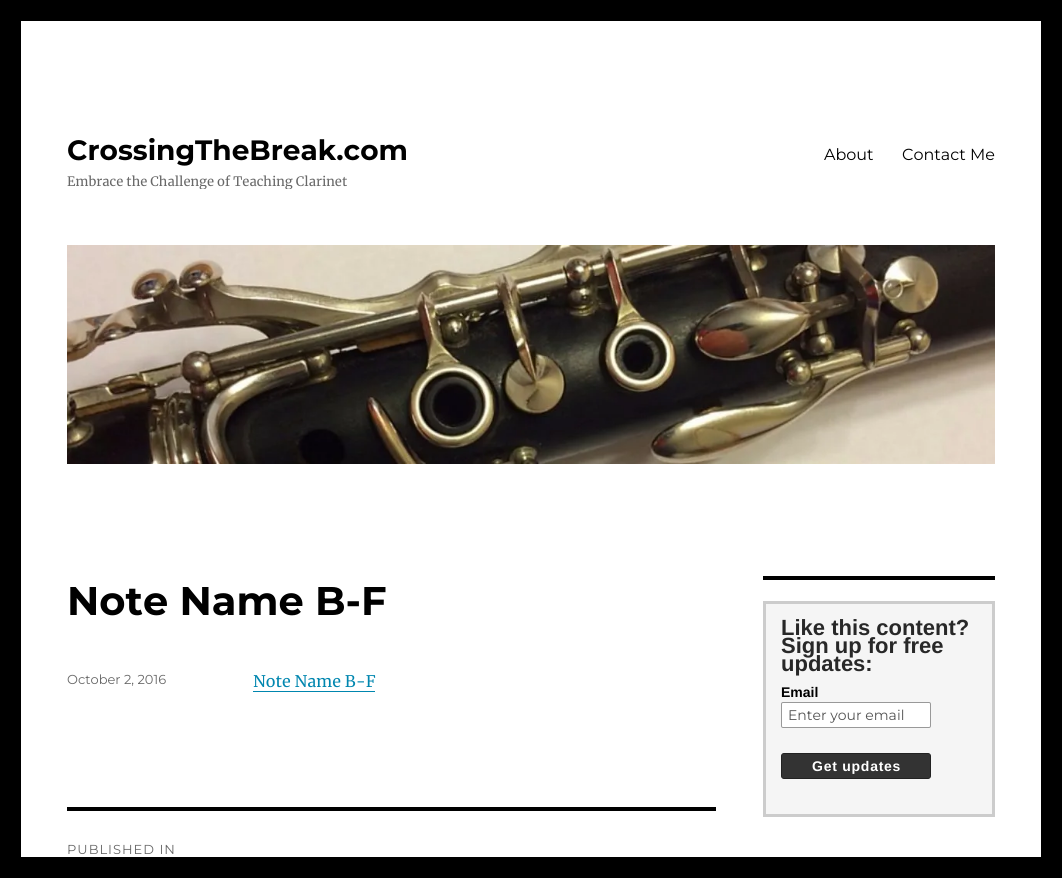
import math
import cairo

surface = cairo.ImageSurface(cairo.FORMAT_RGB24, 1062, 878)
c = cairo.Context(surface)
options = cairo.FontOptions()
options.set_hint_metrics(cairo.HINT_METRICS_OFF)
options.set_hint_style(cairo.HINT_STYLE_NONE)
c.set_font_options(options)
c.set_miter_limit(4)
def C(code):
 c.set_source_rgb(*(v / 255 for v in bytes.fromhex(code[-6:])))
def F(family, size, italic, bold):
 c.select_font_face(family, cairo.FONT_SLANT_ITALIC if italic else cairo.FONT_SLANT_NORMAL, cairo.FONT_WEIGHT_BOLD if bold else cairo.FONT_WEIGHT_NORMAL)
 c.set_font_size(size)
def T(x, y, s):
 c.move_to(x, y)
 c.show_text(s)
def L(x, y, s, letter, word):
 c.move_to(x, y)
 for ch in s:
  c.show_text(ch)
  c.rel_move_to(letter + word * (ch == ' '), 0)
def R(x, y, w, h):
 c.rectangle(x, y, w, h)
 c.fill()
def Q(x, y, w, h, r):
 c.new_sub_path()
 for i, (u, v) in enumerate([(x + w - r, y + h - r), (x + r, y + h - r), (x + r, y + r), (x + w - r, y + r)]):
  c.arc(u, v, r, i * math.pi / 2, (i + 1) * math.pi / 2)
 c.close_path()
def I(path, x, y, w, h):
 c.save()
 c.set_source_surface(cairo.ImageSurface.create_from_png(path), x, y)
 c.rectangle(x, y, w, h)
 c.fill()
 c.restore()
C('000000')
c.paint()
C('ffffff')
R(21,21,1020,836)
F('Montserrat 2 Thin',28,0,0)
C('000000')
T(67,160,'CrossingTheBreak.com')
c.save()
c.rectangle(67,133,341,56)
c.clip()
F('Merriweather',13,0,0)
C('686868')
T(67,186,'Embrace the Challenge of Teaching Clarinet')
c.restore()
F('Montserrat Thin',16,0,0)
T(824,160,'About')
T(902,160,'Contact Me')
I('1.png',67,245,928,219)
F('Montserrat 2 Thin',40,0,0)
T(67,615,'Note Name B-F')
F('Montserrat Thin',13,0,0)
C('686868')
T(67,684,'October 2, 2016')
F('Merriweather',16,0,0)
C('0086af')
T(253,687,'Note Name B-F')
R(253,691,122,1)
C('000000')
R(67,807,649,4)
F('Montserrat Thin',13,0,0)
C('686868')
L(67,854,'PUBLISHED IN',1,0)
C('000000')
R(763,576,232,4)
C('f5f5f5')
c.rectangle(764.5,602.5,229,213)
c.fill_preserve()
C('cccccc')
c.set_line_width(3)
c.stroke()
F('Liberation Sans',22,0,1)
C('282828')
T(781,635,'Like this content?')
T(781,653,'Sign up for free')
T(781,671,'updates:')
F('Liberation Sans',14,0,1)
C('000000')
T(781,697,'Email')
C('ffffff')
Q(781.5,702.5,149,25,1.5)
c.fill_preserve()
C('999999')
c.set_line_width(1)
c.stroke()
F('Montserrat Thin',14,0,0)
C('555555')
T(788,720,'Enter your email')
C('333333')
Q(781.5,753.5,149,25,2.5)
c.fill_preserve()
C('222222')
c.stroke()
F('Liberation Sans',14,0,1)
C('ffffff')
L(812,771,'Get updates',.75,0)
surface.write_to_png('o.png')
